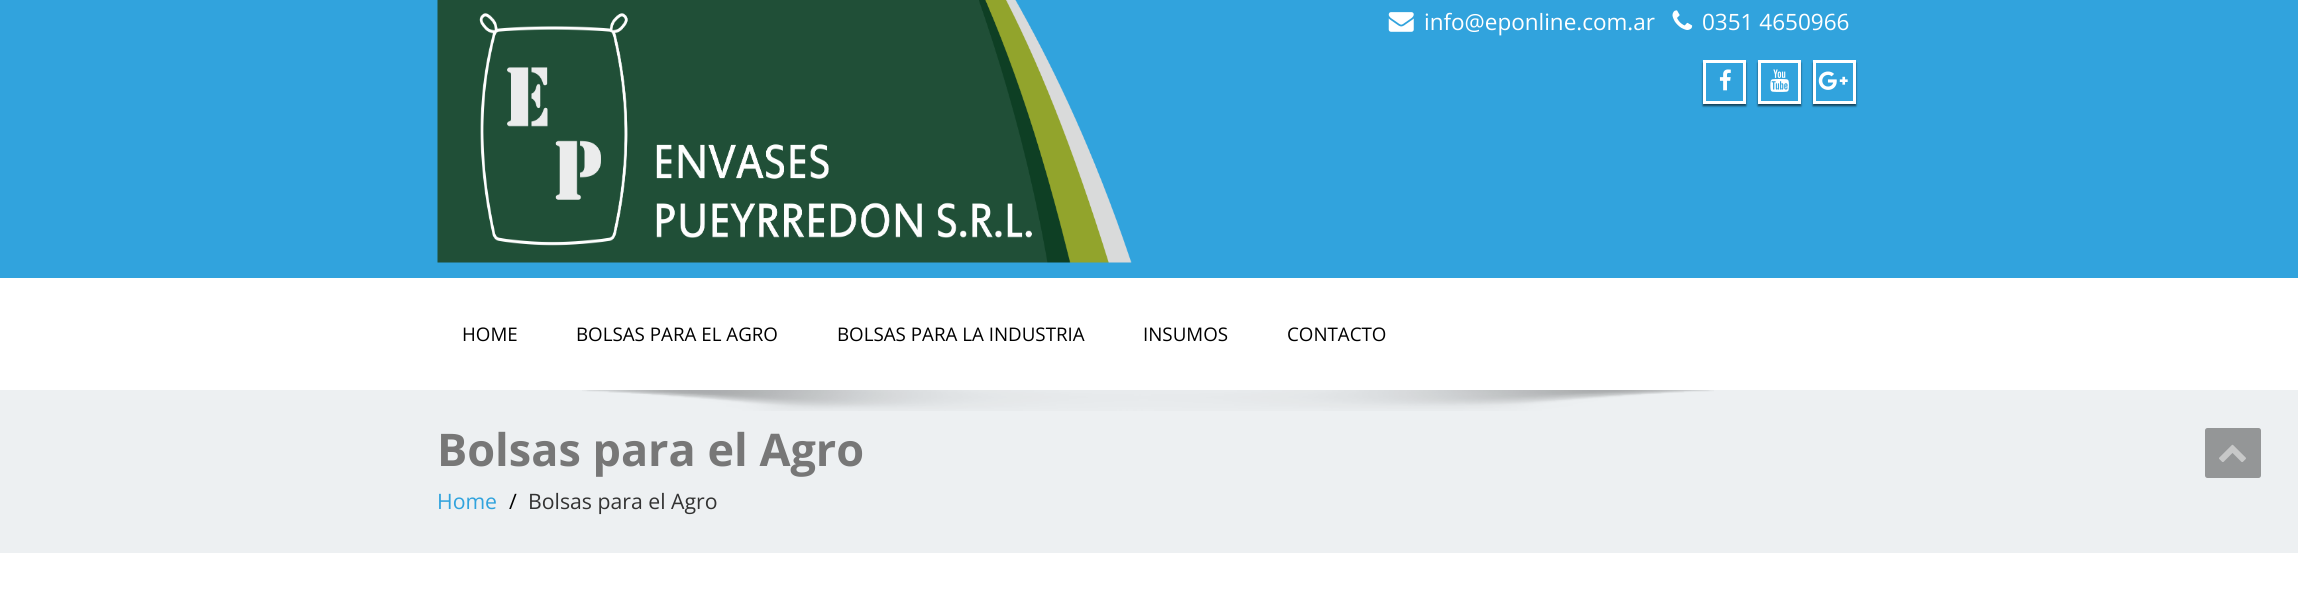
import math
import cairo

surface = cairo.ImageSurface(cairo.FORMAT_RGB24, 2298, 602)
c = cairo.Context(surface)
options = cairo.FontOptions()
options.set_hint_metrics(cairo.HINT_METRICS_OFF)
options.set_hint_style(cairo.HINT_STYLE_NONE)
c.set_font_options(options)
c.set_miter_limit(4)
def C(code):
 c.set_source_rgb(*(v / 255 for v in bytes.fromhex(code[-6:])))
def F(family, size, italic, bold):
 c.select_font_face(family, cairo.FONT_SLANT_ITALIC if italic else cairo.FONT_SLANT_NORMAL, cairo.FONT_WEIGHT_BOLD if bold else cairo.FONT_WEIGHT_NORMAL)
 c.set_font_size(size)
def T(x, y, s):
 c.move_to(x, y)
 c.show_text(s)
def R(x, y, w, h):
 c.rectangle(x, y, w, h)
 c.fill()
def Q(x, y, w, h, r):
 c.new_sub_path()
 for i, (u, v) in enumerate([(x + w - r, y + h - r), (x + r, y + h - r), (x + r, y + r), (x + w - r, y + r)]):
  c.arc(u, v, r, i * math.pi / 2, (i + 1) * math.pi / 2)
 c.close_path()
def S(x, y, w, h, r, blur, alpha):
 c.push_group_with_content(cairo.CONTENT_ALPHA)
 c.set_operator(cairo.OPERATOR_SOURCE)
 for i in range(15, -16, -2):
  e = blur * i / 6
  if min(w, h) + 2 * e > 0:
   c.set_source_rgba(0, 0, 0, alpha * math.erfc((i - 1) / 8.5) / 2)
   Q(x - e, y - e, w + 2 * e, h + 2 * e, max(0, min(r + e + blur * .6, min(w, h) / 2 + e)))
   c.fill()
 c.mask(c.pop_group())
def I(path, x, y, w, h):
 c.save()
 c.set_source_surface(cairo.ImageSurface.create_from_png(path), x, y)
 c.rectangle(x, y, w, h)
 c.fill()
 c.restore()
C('ffffff')
c.paint()
C('31a3dd')
R(0,0,2298,278)
I('1.png',437,0,695,263)
I('2.png',1388,12,26,20)
F('Open Sans',22.5,0,0)
C('ffffff')
T(1424,30,'info@eponline.com.ar')
I('3.png',1672,10,21,20)
T(1702,30,'0351 4650966')
c.save()
c.set_fill_rule(cairo.FILL_RULE_EVEN_ODD)
c.new_path()
c.move_to(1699,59)
c.line_to(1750,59)
c.line_to(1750,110)
c.line_to(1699,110)
c.close_path()
c.move_to(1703,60)
c.line_to(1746,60)
c.line_to(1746,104)
c.line_to(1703,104)
c.close_path()
c.clip()
C('000000')
S(1703,63,43,43,0,1,.6)
c.restore()
c.rectangle(1704.5,61.5,40,41)
c.set_line_width(3)
c.stroke()
I('4.png',1719,69,12,22)
c.save()
c.set_fill_rule(cairo.FILL_RULE_EVEN_ODD)
c.new_path()
c.move_to(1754,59)
c.line_to(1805,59)
c.line_to(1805,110)
c.line_to(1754,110)
c.close_path()
c.move_to(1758,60)
c.line_to(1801,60)
c.line_to(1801,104)
c.line_to(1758,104)
c.close_path()
c.clip()
C('000000')
S(1758,63,43,43,0,1,.6)
c.restore()
c.rectangle(1759.5,61.5,40,41)
c.stroke()
I('5.png',1770,69,19,23)
c.save()
c.set_fill_rule(cairo.FILL_RULE_EVEN_ODD)
c.new_path()
c.move_to(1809,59)
c.line_to(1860,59)
c.line_to(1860,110)
c.line_to(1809,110)
c.close_path()
c.move_to(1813,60)
c.line_to(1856,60)
c.line_to(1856,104)
c.line_to(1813,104)
c.close_path()
c.clip()
C('000000')
S(1813,63,43,43,0,1,.6)
c.restore()
c.rectangle(1814.5,61.5,40,41)
c.stroke()
I('6.png',1818,71,30,19)
F('Open Sans',18.75,0,0)
C('000000')
T(462,341,'HOME')
T(576,341,'BOLSAS PARA EL AGRO')
T(837,341,'BOLSAS PARA LA INDUSTRIA')
T(1143,341,'INSUMOS')
T(1287,341,'CONTACTO')
C('edf0f2')
R(0,390,2298,163)
I('7.png',582,390,1132,21)
F('Open Sans',45,0,1)
C('777777')
T(437,466,'Bolsas para el Agro')
F('Open Sans',21.25,0,0)
C('31a3dd')
T(437,509,'Home')
C('000000')
T(509,509,'/')
C('333333')
T(528,509,'Bolsas para el Agro')
C('949697')
Q(2205,428,56,50,2.5)
c.fill()
I('8.png',2219,444,27,18)
surface.write_to_png('o.png')
